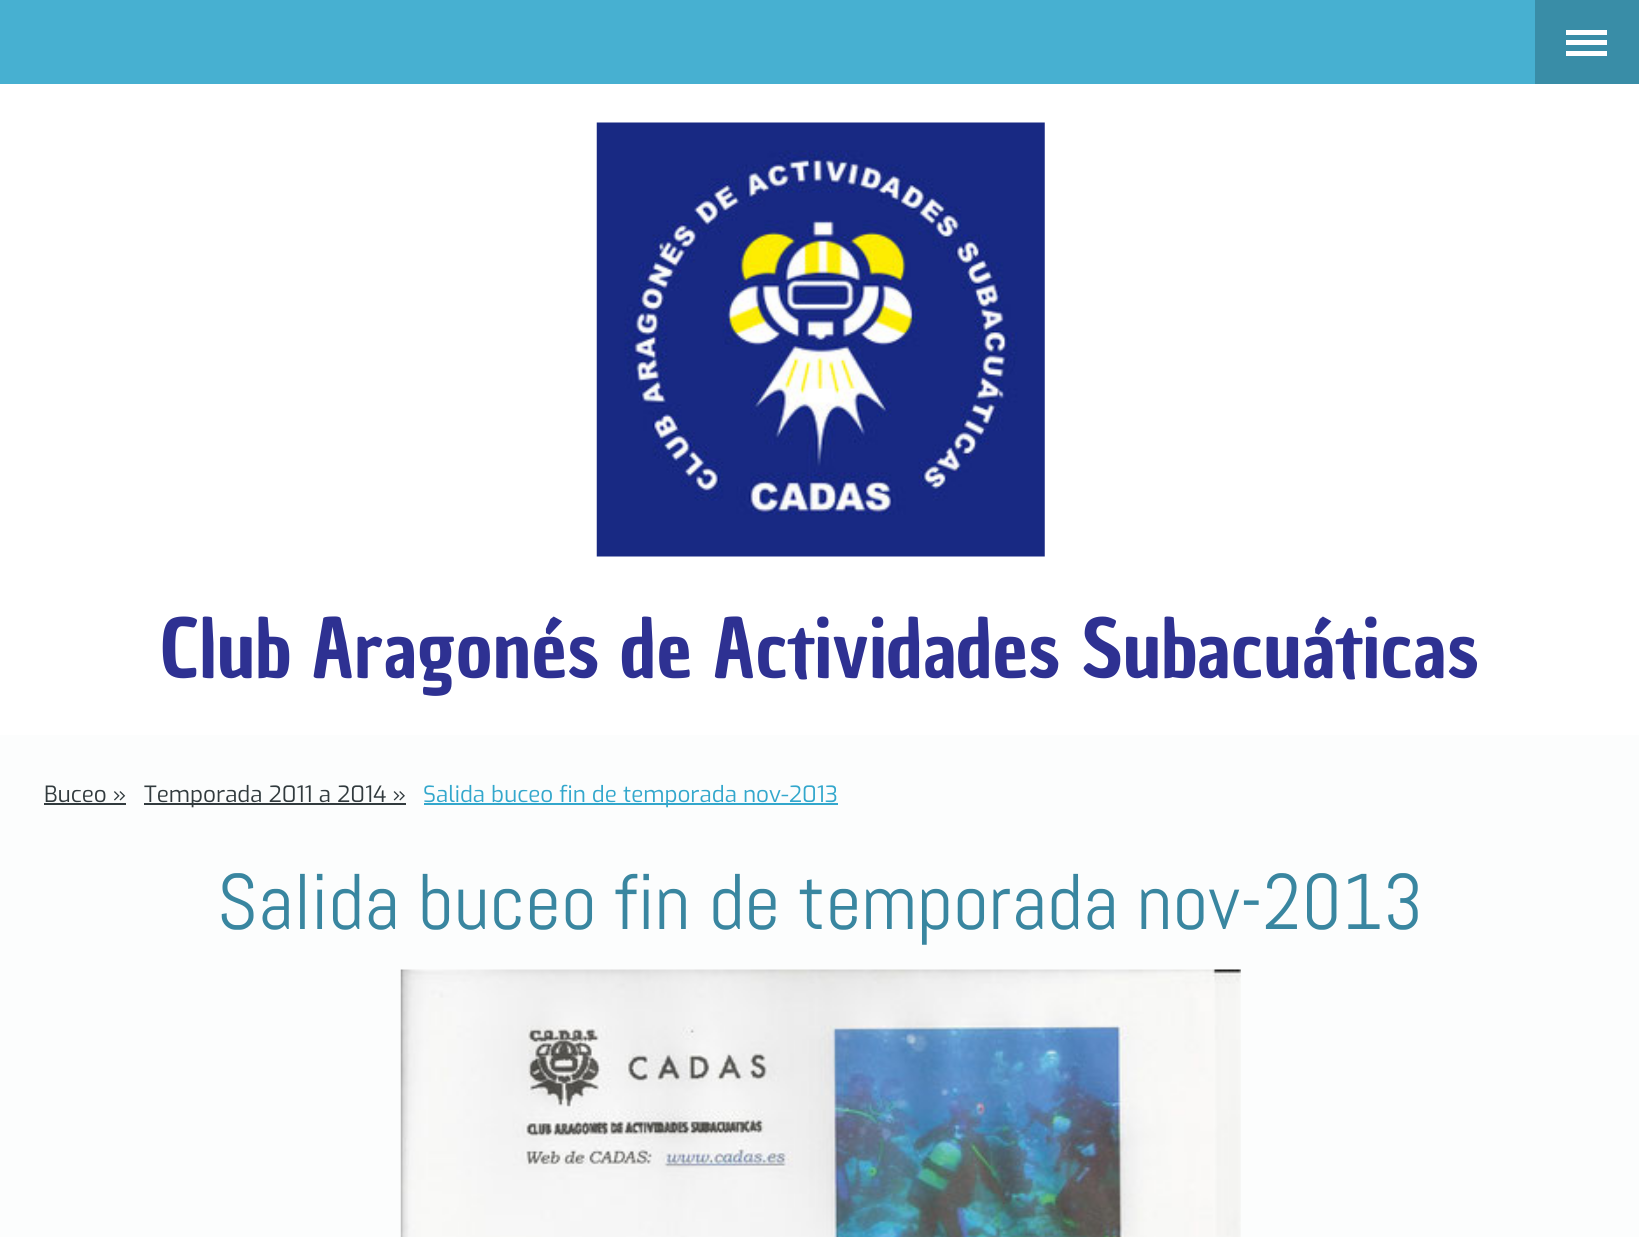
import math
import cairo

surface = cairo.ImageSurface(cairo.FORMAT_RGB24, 1639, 1237)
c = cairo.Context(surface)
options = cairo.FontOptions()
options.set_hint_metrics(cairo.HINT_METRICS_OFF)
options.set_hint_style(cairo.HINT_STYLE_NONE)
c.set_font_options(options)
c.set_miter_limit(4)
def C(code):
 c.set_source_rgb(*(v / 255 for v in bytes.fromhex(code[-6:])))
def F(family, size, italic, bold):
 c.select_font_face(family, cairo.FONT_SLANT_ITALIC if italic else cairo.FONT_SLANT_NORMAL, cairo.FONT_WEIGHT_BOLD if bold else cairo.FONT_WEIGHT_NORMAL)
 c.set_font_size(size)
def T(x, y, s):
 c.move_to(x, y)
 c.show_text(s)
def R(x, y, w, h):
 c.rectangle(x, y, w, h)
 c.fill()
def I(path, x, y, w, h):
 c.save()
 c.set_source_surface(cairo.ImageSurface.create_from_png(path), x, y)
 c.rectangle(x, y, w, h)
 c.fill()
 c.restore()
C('ffffff')
c.paint()
C('398da7')
R(1535,0,104,84)
C('ffffff')
R(1566,40,41,5)
R(1566,30,41,5)
R(1566,51,41,5)
C('47b0d1')
R(0,0,1535,84)
I('1.png',596,122,449,435)
F('Chau Philomene One',78.75,0,0)
C('2e3192')
T(160,677,'Club Aragonés de Actividades Subacuáticas')
C('fcfdfd')
R(0,735,1639,502)
F('Exo',22.4,0,0)
C('323b3e')
T(44,802,'Buceo »')
R(44,803,82,2)
R(144,803,262,2)
T(144,802,'Temporada 2011 a 2014 »')
C('33a7cc')
R(424,803,414,2)
T(423,802,'Salida buceo fin de temporada nov-2013')
F('Abel',78.75,0,0)
C('3986a0')
T(217,929,'Salida buceo fin de temporada nov-2013')
I('2.png',400,969,841,268)
surface.write_to_png('o.png')
